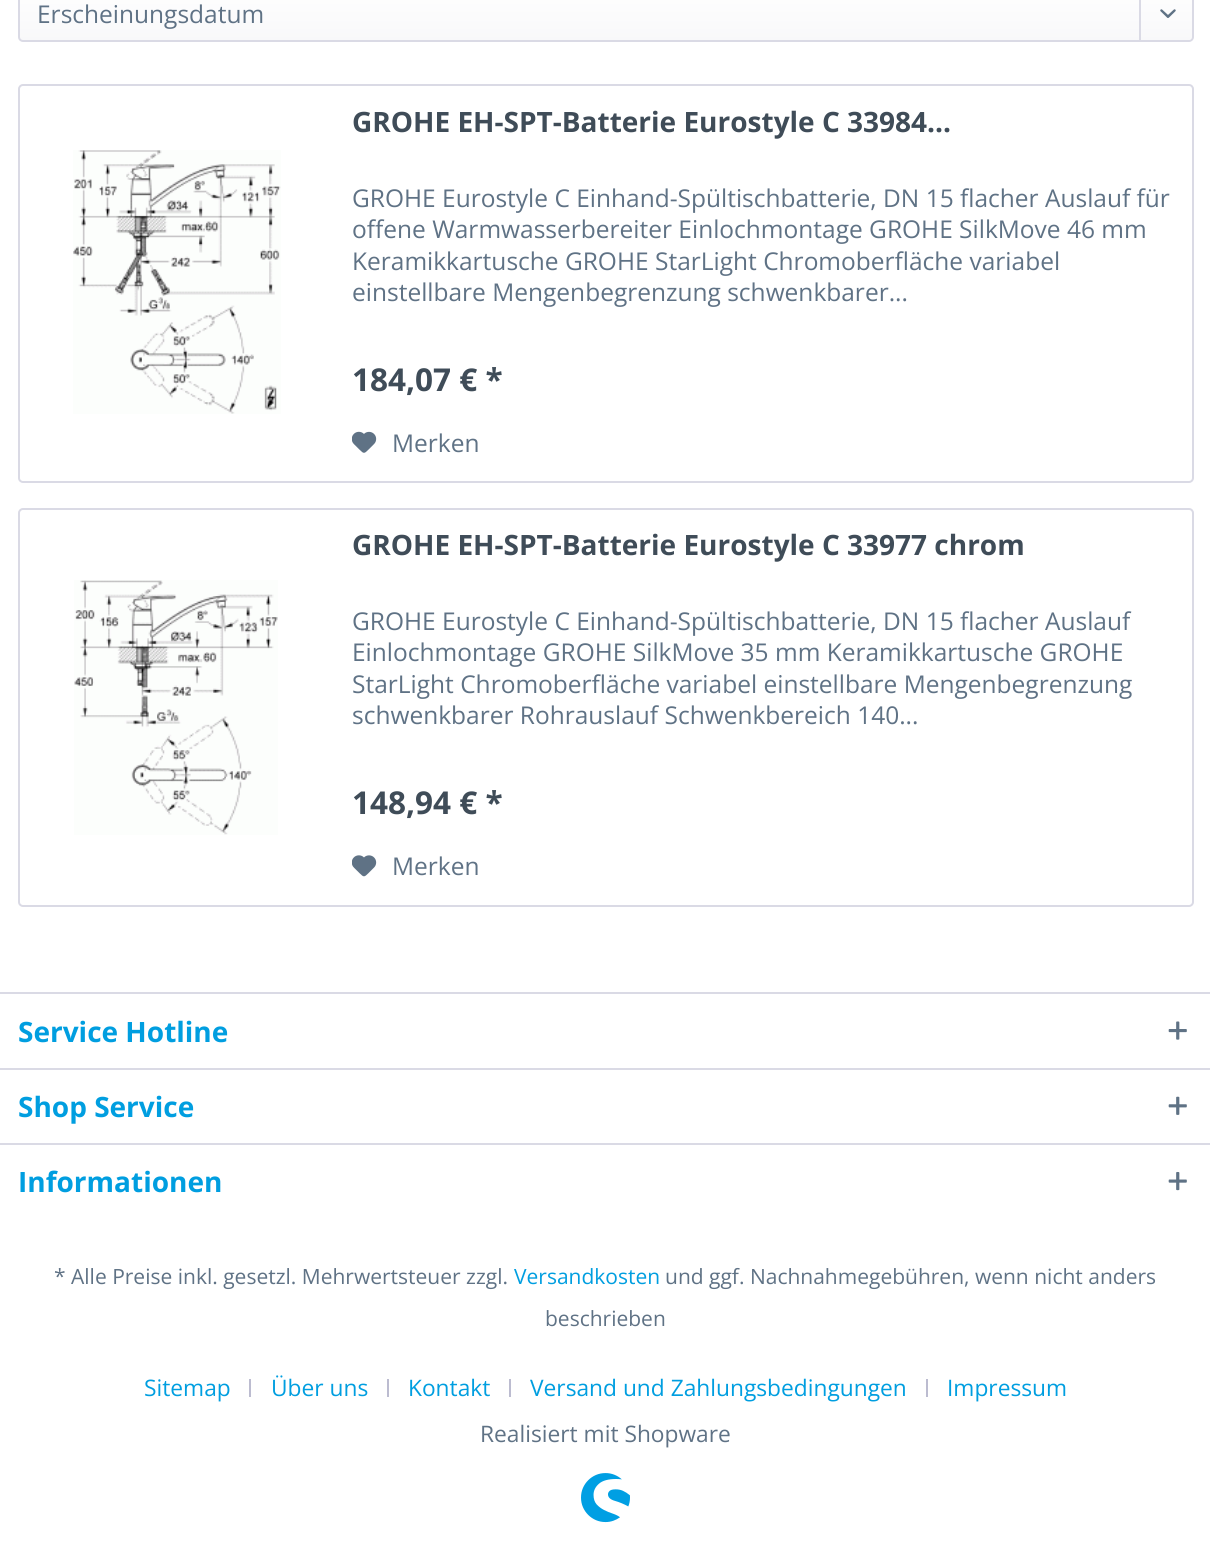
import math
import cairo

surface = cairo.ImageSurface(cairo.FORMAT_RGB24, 1210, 1550)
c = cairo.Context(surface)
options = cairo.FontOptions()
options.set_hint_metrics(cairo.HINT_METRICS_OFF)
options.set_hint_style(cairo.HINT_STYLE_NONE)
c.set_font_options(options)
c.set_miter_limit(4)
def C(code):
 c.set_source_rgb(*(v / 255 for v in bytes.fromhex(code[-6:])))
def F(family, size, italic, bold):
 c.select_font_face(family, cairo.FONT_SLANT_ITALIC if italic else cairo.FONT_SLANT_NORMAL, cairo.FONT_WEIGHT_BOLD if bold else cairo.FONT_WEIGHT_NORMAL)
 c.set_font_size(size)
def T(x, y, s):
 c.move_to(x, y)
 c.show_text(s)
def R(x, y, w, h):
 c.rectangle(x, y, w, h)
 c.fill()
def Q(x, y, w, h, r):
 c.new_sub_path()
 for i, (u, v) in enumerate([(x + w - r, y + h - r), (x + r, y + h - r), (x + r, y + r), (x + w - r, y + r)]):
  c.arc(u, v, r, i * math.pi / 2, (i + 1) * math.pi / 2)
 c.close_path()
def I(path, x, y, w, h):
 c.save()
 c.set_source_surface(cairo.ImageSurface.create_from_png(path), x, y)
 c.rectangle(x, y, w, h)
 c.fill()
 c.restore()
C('ffffff')
c.paint()
gradient = cairo.LinearGradient(606,-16,606,40)
gradient.add_color_stop_rgba(0,1,1,1,1)
gradient.add_color_stop_rgba(1,0.973,0.973,0.98,1)
c.set_source(gradient)
Q(19,-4,1173,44,4)
c.fill()
Q(19,-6,1174,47,4)
C('dadae5')
c.stroke()
F('Open Sans',24.5,0,0)
C('5f7285')
T(37,23,'Erscheinungsdatum')
C('dadae5')
R(1139,0,2,42)
I('1.png',1160,9,16,9)
Q(19,85,1174,397,4)
c.stroke()
F('Open Sans',28,0,1)
C('3f4c58')
T(352,132,'GROHE EH-SPT-Batterie Eurostyle C 33984...')
I('2.png',73,150,208,264)
F('Open Sans',24.5,0,0)
C('5f7285')
T(352,207,'GROHE Eurostyle C Einhand-Spültischbatterie, DN 15 flacher Auslauf für')
T(352,238,'offene Warmwasserbereiter Einlochmontage GROHE SilkMove 46 mm')
T(352,270,'Keramikkartusche GROHE StarLight Chromoberfläche variabel')
T(352,301,'einstellbare Mengenbegrenzung schwenkbarer...')
F('Open Sans',31.5,0,1)
C('3f4c58')
T(352,391,'184,07 € *')
I('3.png',352,431,25,22)
F('Open Sans',24.5,0,0)
C('5f7285')
T(392,452,'Merken')
Q(19,509,1174,397,4)
C('dadae5')
c.stroke()
F('Open Sans',28,0,1)
C('3f4c58')
T(352,555,'GROHE EH-SPT-Batterie Eurostyle C 33977 chrom')
I('4.png',74,580,204,255)
F('Open Sans',24.5,0,0)
C('5f7285')
T(352,630,'GROHE Eurostyle C Einhand-Spültischbatterie, DN 15 flacher Auslauf')
T(352,661,'Einlochmontage GROHE SilkMove 35 mm Keramikkartusche GROHE')
T(352,693,'StarLight Chromoberfläche variabel einstellbare Mengenbegrenzung')
T(352,724,'schwenkbarer Rohrauslauf Schwenkbereich 140...')
F('Open Sans',31.5,0,1)
C('3f4c58')
T(352,814,'148,94 € *')
I('5.png',352,855,25,22)
F('Open Sans',24.5,0,0)
C('5f7285')
T(392,875,'Merken')
C('dadae5')
R(0,992,1210,2)
F('Open Sans',28,0,1)
C('009ee0')
T(18,1042,'Service Hotline')
I('6.png',1168,1021,19,19)
C('dadae5')
R(0,1068,1210,2)
C('009ee0')
T(18,1117,'Shop Service')
I('7.png',1168,1096,19,19)
C('dadae5')
R(0,1143,1210,2)
C('009ee0')
T(18,1192,'Informationen')
I('8.png',1168,1171,19,20)
F('Open Sans',21,0,0)
C('5f7285')
T(54,1284,'* Alle Preise inkl. gesetzl. Mehrwertsteuer zzgl.')
C('009ee0')
T(514,1284,'Versandkosten')
C('5f7285')
T(665,1284,'und ggf. Nachnahmegebühren, wenn nicht anders')
T(545,1326,'beschrieben')
F('Open Sans',22.75,0,0)
C('009ee0')
T(144,1396,'Sitemap')
C('bcbcd0')
R(249,1379,2,18)
C('009ee0')
T(271,1396,'Über uns')
C('bcbcd0')
R(387,1379,2,18)
C('009ee0')
T(408,1396,'Kontakt')
C('bcbcd0')
R(509,1379,2,18)
C('009ee0')
T(530,1396,'Versand und Zahlungsbedingungen')
C('bcbcd0')
R(926,1379,2,18)
C('009ee0')
T(947,1396,'Impressum')
C('5f7285')
T(480,1442,'Realisiert mit Shopware')
I('9.png',581,1473,49,50)
surface.write_to_png('o.png')
